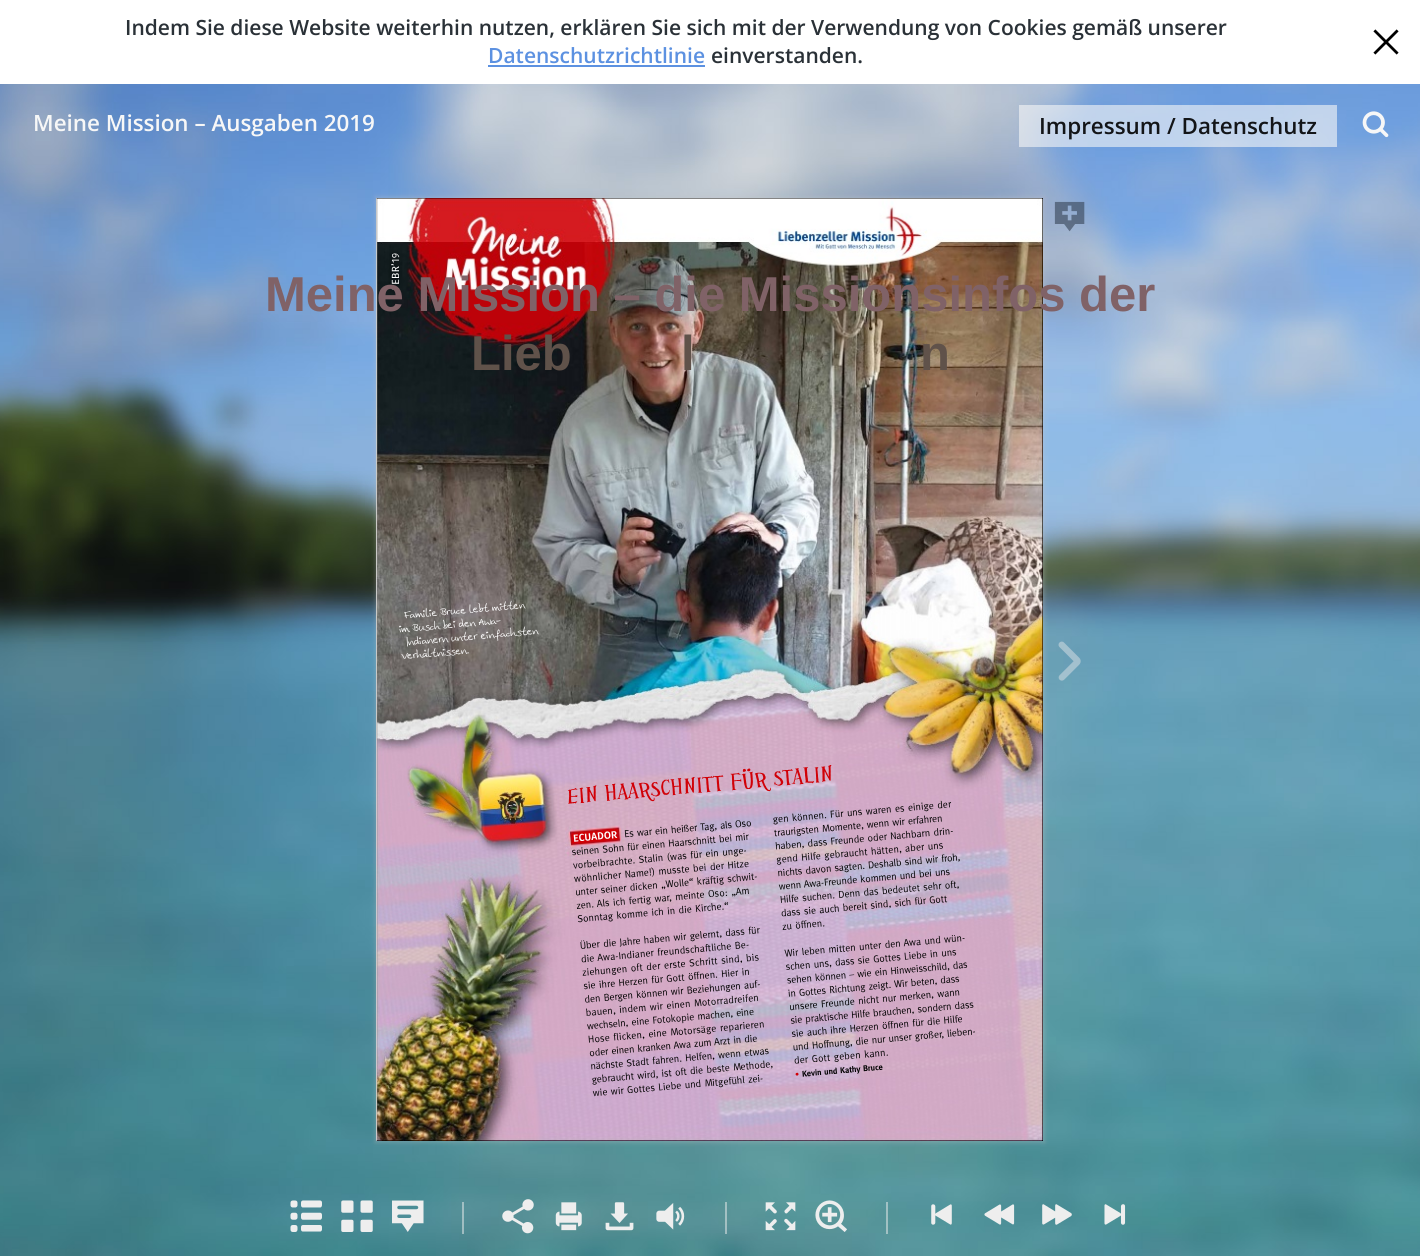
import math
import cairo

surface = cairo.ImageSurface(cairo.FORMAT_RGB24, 1420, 1256)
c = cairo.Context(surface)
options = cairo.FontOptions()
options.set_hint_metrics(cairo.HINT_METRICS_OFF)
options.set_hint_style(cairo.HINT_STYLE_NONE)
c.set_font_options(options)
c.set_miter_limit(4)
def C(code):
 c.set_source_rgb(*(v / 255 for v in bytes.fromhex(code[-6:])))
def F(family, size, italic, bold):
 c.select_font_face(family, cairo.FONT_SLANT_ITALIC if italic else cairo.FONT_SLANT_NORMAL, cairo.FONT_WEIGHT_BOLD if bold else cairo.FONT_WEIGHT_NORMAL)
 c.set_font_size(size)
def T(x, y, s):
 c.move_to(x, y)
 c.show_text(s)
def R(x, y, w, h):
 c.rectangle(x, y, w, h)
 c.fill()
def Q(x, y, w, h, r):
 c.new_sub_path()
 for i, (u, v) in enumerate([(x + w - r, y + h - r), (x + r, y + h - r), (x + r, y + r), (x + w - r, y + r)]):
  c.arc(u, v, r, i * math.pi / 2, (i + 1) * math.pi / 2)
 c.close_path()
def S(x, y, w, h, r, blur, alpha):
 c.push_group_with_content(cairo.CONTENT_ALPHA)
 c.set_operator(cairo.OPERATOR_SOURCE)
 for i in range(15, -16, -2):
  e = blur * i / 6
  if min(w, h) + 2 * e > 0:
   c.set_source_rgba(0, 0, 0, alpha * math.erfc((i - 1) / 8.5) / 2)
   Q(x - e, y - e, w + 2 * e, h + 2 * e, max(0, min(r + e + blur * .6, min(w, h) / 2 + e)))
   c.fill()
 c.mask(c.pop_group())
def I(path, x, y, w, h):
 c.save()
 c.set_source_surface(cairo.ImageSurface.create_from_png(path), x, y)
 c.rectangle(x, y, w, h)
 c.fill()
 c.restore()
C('ffffff')
c.paint()
I('1.png',0,84,1420,1172)
F('Open Sans SemiBold',21,0,0)
C('2a3137')
T(125,35,'Indem Sie diese Website weiterhin nutzen, erklären Sie sich mit der Verwendung von Cookies gemäß unserer')
C('5c91e1')
T(488,63,'Datenschutzrichtlinie')
R(488,65,217,2)
C('2a3137')
T(711,63,'einverstanden.')
I('2.png',1373,29,26,26)
F('Open Sans SemiBold',22.4,0,0)
C('f7f7f7')
T(33,131,'Meine Mission – Ausgaben 2019')
c.set_source_rgba(0.969,0.969,0.969,0.6)
R(1019,105,318,42)
C('131518')
T(1039,134,'Impressum / Datenschutz')
I('3.png',1362,111,27,27)
C('c9c9c9')
S(375,196,670,947,0,2,.25)
C('ffffff')
R(376,198,1,943)
I('4.png',376,198,667,943)
I('5.png',391,253,584,844)
I('6.png',1054,201,31,31)
I('7.png',1058,641,23,40)
I('8.png',290,1200,32,32)
I('9.png',341,1200,32,32)
I('10.png',392,1200,32,32)
c.set_source_rgba(0.933,0.933,0.933,0.5)
R(462,1202,2,32)
I('11.png',502,1199,32,35)
I('12.png',555,1202,27,29)
I('13.png',605,1202,29,29)
I('14.png',656,1203,29,27)
R(725,1202,2,32)
I('15.png',765,1202,31,29)
I('16.png',815,1200,32,32)
R(886,1202,2,32)
I('17.png',931,1204,21,21)
I('18.png',984,1204,31,21)
I('19.png',1042,1204,30,21)
I('20.png',1104,1204,22,21)
F('Liberation Sans',49,0,1)
C('806267')
T(265,311,'Meine Mission – die Missionsinfos der')
C('60524a')
T(471,370,'Lieb')
T(681,370,'l')
T(920,370,'n')
surface.write_to_png('o.png')
